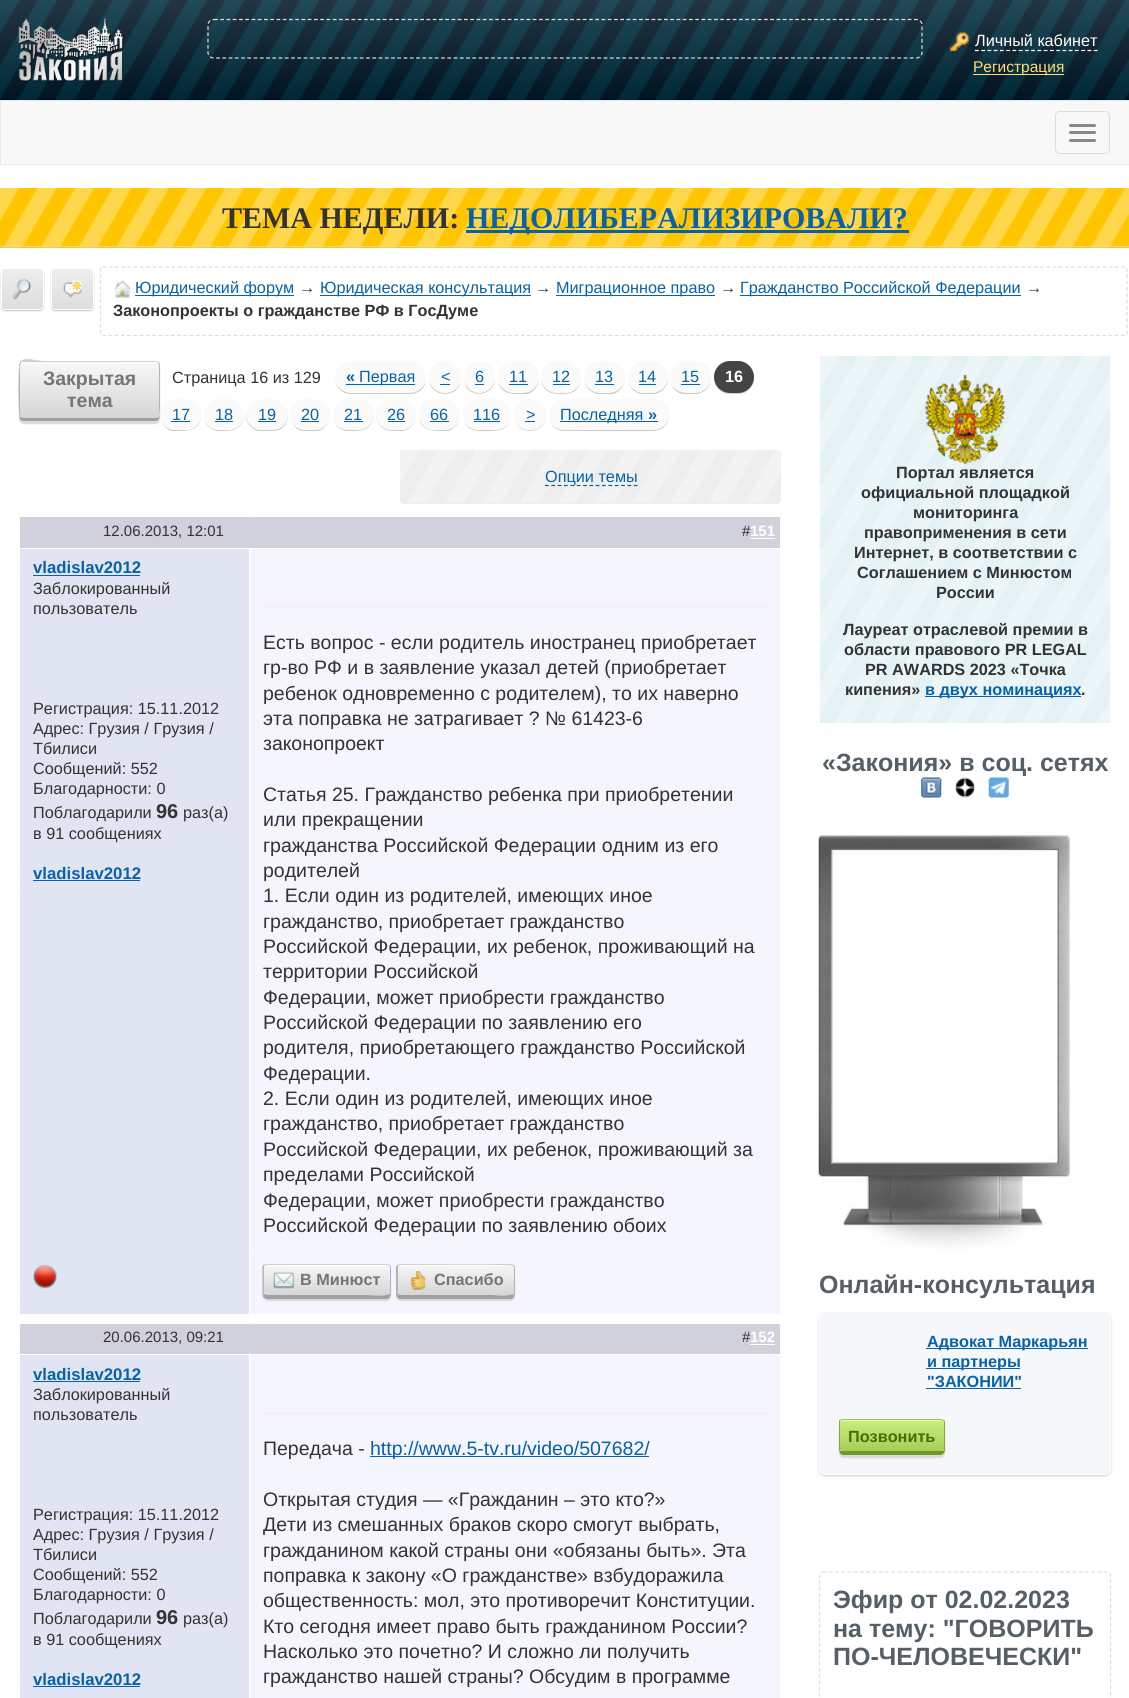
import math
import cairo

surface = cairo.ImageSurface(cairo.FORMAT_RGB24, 1129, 1698)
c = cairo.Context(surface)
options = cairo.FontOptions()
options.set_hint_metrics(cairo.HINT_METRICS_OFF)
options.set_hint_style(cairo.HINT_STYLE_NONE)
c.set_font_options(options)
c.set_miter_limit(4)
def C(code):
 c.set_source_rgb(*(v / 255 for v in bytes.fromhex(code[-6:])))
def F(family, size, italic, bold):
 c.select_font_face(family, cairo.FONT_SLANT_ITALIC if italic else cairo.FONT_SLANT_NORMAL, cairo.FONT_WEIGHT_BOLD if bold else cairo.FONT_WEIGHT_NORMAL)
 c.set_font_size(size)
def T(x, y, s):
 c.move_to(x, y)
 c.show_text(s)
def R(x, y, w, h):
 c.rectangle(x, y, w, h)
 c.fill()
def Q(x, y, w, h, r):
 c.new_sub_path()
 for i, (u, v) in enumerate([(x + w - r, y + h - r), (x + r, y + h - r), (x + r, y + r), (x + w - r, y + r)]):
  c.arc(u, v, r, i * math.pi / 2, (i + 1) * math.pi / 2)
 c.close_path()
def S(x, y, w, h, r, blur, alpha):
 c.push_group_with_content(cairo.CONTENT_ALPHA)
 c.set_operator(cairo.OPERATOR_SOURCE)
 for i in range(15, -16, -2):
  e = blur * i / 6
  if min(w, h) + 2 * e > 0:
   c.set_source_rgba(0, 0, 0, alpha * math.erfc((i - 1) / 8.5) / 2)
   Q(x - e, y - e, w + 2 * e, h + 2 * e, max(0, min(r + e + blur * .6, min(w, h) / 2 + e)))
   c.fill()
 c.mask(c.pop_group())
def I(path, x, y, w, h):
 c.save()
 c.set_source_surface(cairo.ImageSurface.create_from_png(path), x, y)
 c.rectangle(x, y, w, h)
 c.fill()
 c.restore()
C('ffffff')
c.paint()
I('1.png',0,0,1129,100)
I('2.png',18,18,106,64)
c.new_path()
c.move_to(214,19.5)
c.line_to(916,19.5)
c.curve_to(919.5,19.5,922,22,922,25)
c.line_to(922,52.5)
c.curve_to(922,55.5,919.5,58,916,58)
c.line_to(214,58)
c.curve_to(210.5,58,208,55.5,208,52.5)
c.line_to(208,25)
c.curve_to(208,22,210.5,19.5,214,19.5)
c.close_path()
C('dddddd')
c.set_line_width(1.2)
c.set_dash([3.75,2.5])
c.stroke()
I('3.png',950,32,19,21)
F('Liberation Sans',16.25,0,0)
C('ffffff')
T(975,46,'Личный кабинет')
c.new_path()
c.move_to(975,50.5)
c.line_to(1097.5,50.5)
c.stroke()
C('ffdd77')
R(973,74,91,1)
F('Liberation Sans',15.5,0,0)
T(973,72,'Регистрация')
C('f8f8f8')
c.rectangle(.5,100.5,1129,64)
c.fill_preserve()
C('e7e7e7')
c.set_line_width(1)
c.set_dash([])
c.stroke()
Q(1055.5,111.5,54,42,4.5)
C('dddddd')
c.stroke()
C('888888')
Q(1069,124,27,3,1.5)
c.fill()
Q(1069,131,27,3,1.5)
c.fill()
Q(1069,139,27,3,1.5)
c.fill()
C('ffc600')
R(0,188,1129,60)
I('4.png',0,188,1129,60)
C('e4d6a5')
R(0,246,1129,1)
F('Liberation Serif',30,0,1)
C('333333')
T(222,228,'ТЕМА НЕДЕЛИ:')
C('0762a9')
R(466,230,443,3)
T(466,228,'НEДОЛИБЕРАЛИЗИРОВАЛИ?')
c.new_path()
c.move_to(102.5,267)
c.line_to(1125,267)
c.curve_to(1126,267,1127,267.5,1127,269)
c.line_to(1127,334)
c.curve_to(1127,335,1126,335.5,1125,335.5)
c.line_to(102.5,335.5)
c.curve_to(101.5,335.5,100.5,335,100.5,334)
c.line_to(100.5,269)
c.curve_to(100.5,267.5,101.5,267,102.5,267)
c.close_path()
C('dddddd')
c.set_line_width(1.2)
c.set_dash([3.75,2.5])
c.stroke()
C('cccccc')
S(1,269,43,42,4,.5,1)
c.save()
Q(1,268,43,42,4)
c.clip()
gradient = cairo.LinearGradient(22,269,23,309)
gradient.add_color_stop_rgba(0,0.933,0.933,0.933,1)
gradient.add_color_stop_rgba(1,0.867,0.867,0.867,1)
c.set_source(gradient)
R(1,269,43,40)
c.restore()
Q(1.5,268.5,42,41,3.5)
C('ffffff')
c.set_line_width(1)
c.set_dash([])
c.stroke()
I('5.png',12,278,20,21)
C('cccccc')
S(51,269,43,42,4,.5,1)
c.save()
Q(51,268,43,42,4)
c.clip()
gradient = cairo.LinearGradient(73,269,73,309)
gradient.add_color_stop_rgba(0,0.933,0.933,0.933,1)
gradient.add_color_stop_rgba(1,0.867,0.867,0.867,1)
c.set_source(gradient)
R(51,269,43,40)
c.restore()
Q(51.5,268.5,42,41,3.5)
C('ffffff')
c.stroke()
I('6.png',63,280,20,18)
I('7.png',114,280,17,18)
C('0762a9')
R(135,295,159,1)
F('Liberation Sans',16.25,0,0)
T(135,293,'Юридический форум')
C('333333')
T(299,293,'→')
C('0762a9')
R(320,295,211,1)
T(320,293,'Юридическая консультация')
C('333333')
T(535,293,'→')
C('0762a9')
R(556,295,159,1)
T(556,293,'Миграционное право')
C('333333')
T(720,293,'→')
C('0762a9')
R(740,295,281,1)
T(740,293,'Гражданство Российской Федерации')
C('333333')
T(1026,293,'→')
F('Liberation Sans',16.25,0,1)
T(113,316,'Законопроекты о гражданстве РФ в ГосДуме')
C('cdc9c3')
c.new_path()
c.move_to(160,415)
c.curve_to(160,422,165,429,172,431)
c.line_to(180,431)
c.curve_to(190,431,199,429,201,418)
c.curve_to(199,425,193,430,186,430)
c.line_to(176,430)
c.curve_to(167,430,160,423,160,415)
c.close_path()
c.fill()
C('fafafa')
Q(160,399,41,31,15.5)
c.fill()
C('dadada')
S(19,364,141,60,5,.5,1)
gradient = cairo.LinearGradient(89,363,89,418)
gradient.add_color_stop_rgba(0,0.969,0.969,0.969,1)
gradient.add_color_stop_rgba(1,0.835,0.835,0.835,1)
c.set_source(gradient)
c.new_path()
c.move_to(22,362)
c.line_to(156,362)
c.curve_to(158,362,159,364,159,365)
c.line_to(159,416)
c.curve_to(159,417,157,418,155,418)
c.line_to(24,418)
c.curve_to(22,418,20,417,20,416)
c.line_to(20,365)
c.curve_to(20,364,21,362,22,362)
c.close_path()
c.fill()
C('ffffff')
c.new_path()
c.move_to(22,364)
c.line_to(157,364)
c.line_to(159,365)
c.curve_to(159,364,158,363,156,362)
c.line_to(22,363)
c.curve_to(20,363,20,364,20,366)
c.curve_to(20,365,21,364,22,364)
c.close_path()
c.fill()
C('d0d0d0')
c.new_path()
c.move_to(22,362)
c.line_to(21,363)
c.line_to(20,362)
c.curve_to(24,356,36,361,44,361)
c.line_to(157,361)
c.line_to(159,362)
c.line_to(158,363)
c.line_to(156,362)
c.close_path()
c.fill()
C('b5b5b5')
c.new_path()
c.move_to(160,416)
c.line_to(160,365)
c.line_to(159,362)
c.line_to(158,363)
c.line_to(159,365)
c.line_to(159,408)
c.curve_to(159,411,161,415,159,417)
c.line_to(159,419)
c.close_path()
c.fill()
C('a0a0a0')
c.new_path()
c.move_to(159,419)
c.curve_to(158,420,157,421,155,421)
c.line_to(24,421)
c.curve_to(22,421,20,420,20,419)
c.line_to(20,417)
c.curve_to(21,417,22,418,24,418)
c.line_to(155,418)
c.curve_to(156,418,158,418,159,417)
c.close_path()
c.fill()
C('b5b5b5')
c.new_path()
c.move_to(20,419)
c.curve_to(18,416,18,364,20,362)
c.line_to(21,363)
c.curve_to(19,366,20,372,20,374)
c.line_to(20,417)
c.close_path()
c.fill()
F('Liberation Sans',19.5,0,1)
C('757575')
T(43,385,'Закрытая')
T(67,407,'тема')
F('Liberation Sans',16.25,0,0)
C('333333')
T(172,383,'Страница 16 из 129')
C('cdc9c3')
c.new_path()
c.move_to(335,378)
c.curve_to(335,387,342,394,350,394)
c.line_to(410,394)
c.curve_to(419,394,425,388,426,380)
c.curve_to(424,387,418,392,411,392)
c.line_to(351,392)
c.curve_to(342,392,335,386,335,378)
c.close_path()
c.fill()
C('fafafa')
Q(335,361,91,32,16)
c.fill()
F('Liberation Sans',16.25,0,1)
C('0762a9')
T(346,382,'«')
R(346,384,69,1)
F('Liberation Sans',16.25,0,0)
T(359,382,'Первая')
C('cdc9c3')
c.new_path()
c.move_to(429,380)
c.curve_to(431,398.5,459,398.5,461,380)
c.curve_to(457.5,396.5,432.5,396.5,429,380)
c.close_path()
c.fill()
C('fafafa')
c.arc(445,377,16,0,2 * math.pi)
c.fill()
C('0762a9')
T(441,382,'<')
R(440,384,10,1)
C('cdc9c3')
c.new_path()
c.move_to(464,380)
c.curve_to(466,400,496,397.5,495,377.5)
c.curve_to(494,396,468,397.5,464,380)
c.close_path()
c.fill()
C('fafafa')
Q(464,361,31,32,15.5)
c.fill()
C('0762a9')
T(475,382,'6')
R(475,384,9,1)
C('cdc9c3')
c.new_path()
c.move_to(498,382)
c.curve_to(501,393,510,394,518,394)
c.line_to(527,394)
c.curve_to(535,392,540,384,539,375)
c.curve_to(539,383,534,391,526,392)
c.line_to(518,392)
c.curve_to(510,392,502,391,498,382)
c.close_path()
c.fill()
C('fafafa')
Q(498,361,41,32,16)
c.fill()
C('0762a9')
T(509,382,'11')
R(509,384,19,1)
C('cdc9c3')
c.new_path()
c.move_to(541.5,375.5)
c.curve_to(539.5,383.5,545,392,553.5,393.5)
c.line_to(561,394)
c.line_to(568.5,393.5)
c.curve_to(575,392.5,580,387,581,380)
c.curve_to(579.5,386,574.5,391,568.5,392.5)
c.line_to(561,392.5)
c.line_to(553.5,392)
c.curve_to(546,390.5,540.5,383,541.5,375.5)
c.close_path()
c.fill()
C('fafafa')
Q(541,361,40,32,16)
c.fill()
C('0762a9')
T(552,382,'12')
R(553,384,17,1)
C('cdc9c3')
c.new_path()
c.move_to(584,380)
c.curve_to(585,387,590,392,597,394)
c.line_to(613,394)
c.curve_to(620,392,625,385,625,378)
c.curve_to(625,386,618,392,609,392)
c.line_to(599,392)
c.curve_to(592,392,586,387,584,380)
c.close_path()
c.fill()
C('fafafa')
Q(584,361,41,32,16)
c.fill()
C('0762a9')
T(595,382,'13')
R(595,384,19,1)
C('cdc9c3')
c.new_path()
c.move_to(628.5,382.5)
c.curve_to(630,389,636.5,394,643.5,394)
c.line_to(652.5,394)
c.curve_to(661,394,668,387,668,378.5)
c.curve_to(668,376.5,667.5,375,667,373)
c.curve_to(669,381.5,663.5,390.5,655,392)
c.line_to(647.5,392.5)
c.line_to(640.5,392.5)
c.curve_to(635,391.5,630.5,387.5,628.5,382.5)
c.close_path()
c.fill()
C('fafafa')
Q(628,361,40,32,16)
c.fill()
C('0762a9')
T(638,382,'14')
R(639,384,17,1)
C('cdc9c3')
c.new_path()
c.move_to(670,378)
c.curve_to(670,385,675,392,682,394)
c.line_to(698,394)
c.curve_to(705,392,710,387,711,380)
c.curve_to(709,387,703,392,696,392)
c.line_to(686,392)
c.curve_to(677,392,670,386,670,378)
c.close_path()
c.fill()
C('fafafa')
Q(670,361,41,32,16)
c.fill()
C('0762a9')
T(681,382,'15')
R(681,384,19,1)
C('cdc9c3')
c.new_path()
c.move_to(714,380)
c.curve_to(715,387,720,392.5,726.5,393.5)
c.line_to(734,394)
c.line_to(741.5,393.5)
c.curve_to(750,392,755.5,383.5,753.5,375.5)
c.curve_to(754.5,383,749,390.5,741.5,392)
c.line_to(734,392.5)
c.line_to(726.5,392.5)
c.curve_to(720.5,391,715.5,386,714,380)
c.close_path()
c.fill()
C('444444')
Q(714,361,40,32,16)
c.fill()
F('Liberation Sans',16.25,0,1)
C('ffffff')
T(725,382,'16')
F('Liberation Sans',16.25,0,0)
C('0762a9')
T(172,420,'17')
R(171,421,19,1)
C('cdc9c3')
c.new_path()
c.move_to(204.5,418.5)
c.curve_to(205.5,424.5,210.5,429.5,216.5,431)
c.line_to(224,431)
c.line_to(231.5,430.5)
c.curve_to(240,429,245.5,420,243.5,411.5)
c.curve_to(245,419.5,239.5,428,231.5,429.5)
c.line_to(224,430)
c.line_to(216.5,430)
c.curve_to(211,429,206,424,204.5,418.5)
c.close_path()
c.fill()
C('fafafa')
Q(204,399,40,31,15.5)
c.fill()
C('0762a9')
T(215,420,'18')
R(215,421,18,1)
C('cdc9c3')
c.new_path()
c.move_to(246,412)
c.curve_to(244,420,250,429,258,431)
c.line_to(269,431)
c.curve_to(272,431,275,431,279,430)
c.curve_to(287,426,290,417,286,409)
c.curve_to(289,416,286,426,278,429)
c.curve_to(274,430,271,430,267,430)
c.line_to(259,430)
c.curve_to(251,428,245,420,246,412)
c.close_path()
c.fill()
C('fafafa')
Q(246,399,42,31,15.5)
c.fill()
C('0762a9')
T(258,420,'19')
R(258,421,18,1)
C('cdc9c3')
c.new_path()
c.move_to(290,415)
c.curve_to(290,422,295,429,302,431)
c.line_to(318,431)
c.curve_to(325,429,330,422,330,415)
c.curve_to(330,423,323,430,314,430)
c.line_to(306,430)
c.curve_to(297,430,290,423,290,415)
c.close_path()
c.fill()
C('fafafa')
Q(290,399,40,31,15.5)
c.fill()
C('0762a9')
T(301,420,'20')
R(301,421,18,1)
C('cdc9c3')
c.new_path()
c.move_to(334,421.5)
c.curve_to(336,426.5,341,430,346,431)
c.line_to(353.5,431)
c.line_to(361.5,430.5)
c.curve_to(370,429,375.5,420,373.5,411.5)
c.curve_to(375,419.5,369.5,428,361.5,429.5)
c.line_to(353,430)
c.curve_to(345,430,338.5,429.5,334,421.5)
c.close_path()
c.fill()
C('fafafa')
Q(333,399,41,31,15.5)
c.fill()
C('0762a9')
T(344,420,'21')
R(344,421,19,1)
C('cdc9c3')
c.new_path()
c.move_to(376.5,411.5)
c.curve_to(374.5,420,380,429,388.5,430.5)
c.line_to(396,431)
c.line_to(403.5,431)
c.curve_to(409.5,429.5,414.5,424.5,415.5,418.5)
c.curve_to(414,424,409,429,403.5,430)
c.line_to(396,430)
c.line_to(388.5,429.5)
c.curve_to(380.5,428,375,419.5,376.5,411.5)
c.close_path()
c.fill()
C('fafafa')
Q(376,399,40,31,15.5)
c.fill()
C('0762a9')
T(387,420,'26')
R(388,421,17,1)
C('cdc9c3')
c.new_path()
c.move_to(419,418)
c.curve_to(421,429,430,431,440,431)
c.line_to(448,431)
c.curve_to(455,429,460,422,460,415)
c.curve_to(460,423,453,430,444,430)
c.line_to(434,430)
c.curve_to(427,430,421,425,419,418)
c.close_path()
c.fill()
C('fafafa')
Q(419,399,41,31,15.5)
c.fill()
C('0762a9')
T(430,420,'66')
R(430,421,19,1)
C('cdc9c3')
c.new_path()
c.move_to(464,421)
c.curve_to(468,432,478,431,487,431)
c.curve_to(497,431,508,431,511,418)
c.curve_to(508,430,497,430,487,430)
c.curve_to(478,430,469,431,464,421)
c.close_path()
c.fill()
C('fafafa')
Q(463,399,48,31,15.5)
c.fill()
C('0762a9')
T(473,420,'116')
R(474,421,26,1)
C('cdc9c3')
c.new_path()
c.move_to(514.5,418.5)
c.curve_to(517.5,435,542.5,435,545.5,418.5)
c.curve_to(541.5,434,518.5,434,514.5,418.5)
c.close_path()
c.fill()
C('fafafa')
Q(514,399,32,31,15.5)
c.fill()
C('0762a9')
T(526,420,'>')
R(525,421,10,1)
C('cdc9c3')
c.new_path()
c.move_to(549,418)
c.curve_to(551,426,557,431,564,431)
c.line_to(654,431)
c.curve_to(662,431,669,424,669,416)
c.line_to(669,412)
c.curve_to(670,420,664,428,656,430)
c.line_to(579,430)
c.curve_to(568,430,553,433,549,418)
c.close_path()
c.fill()
C('fafafa')
Q(549,399,120,31,15.5)
c.fill()
C('0762a9')
R(560,421,98,1)
T(560,420,'Последняя')
F('Liberation Sans',16.25,0,1)
T(648,420,'»')
C('eeeeee')
Q(400,449,381,55,4)
c.fill()
I('8.png',400,449,381,54)
C('ffffff')
R(403,449,377,1)
c.new_path()
c.move_to(545,485.5)
c.line_to(637.5,485.5)
C('0762a9')
c.set_line_width(1.2)
c.set_dash([3.75,2.59])
c.stroke()
F('Liberation Sans',16.25,0,0)
T(545,482,'Опции темы')
C('d0d1da')
Q(19,516,231,33,2.5)
c.fill()
C('ffffff')
R(20,516,229,1)
R(20,548,229,1)
R(19,518,1,30)
F('Liberation Sans',15,0,0)
C('333333')
T(103,536,'12.06.2013, 12:01')
C('d0d1da')
Q(250,516,531,33,2.5)
c.fill()
C('ffffff')
R(251,516,529,1)
R(780,518,1,30)
R(251,548,529,1)
C('333333')
T(742,536,'#')
F('Liberation Sans',15,0,1)
C('ffffff')
T(750,536,'151')
R(750,538,25,1)
C('e1e4f2')
Q(19,549,231,705,2.5)
c.fill()
C('ffffff')
R(249,550,1,703)
R(19,550,1,703)
F('Liberation Sans',16.75,0,1)
C('0762a9')
T(33,573,'vladislav2012')
R(33,575,107,1)
F('Liberation Sans',16.25,0,0)
C('333333')
T(33,594,'Заблокированный')
T(33,614,'пользователь')
T(33,714,'Регистрация: 15.11.2012')
T(33,734,'Адрес: Грузия / Грузия /')
T(33,754,'Тбилиси')
T(33,774,'Сообщений: 552')
T(33,794,'Благодарности: 0')
T(33,818,'Поблагодарили')
F('Liberation Sans',20,0,1)
T(156,818,'96')
F('Liberation Sans',16.25,0,0)
T(183,818,'раз(а)')
T(33,839,'в 91 сообщениях')
F('Liberation Sans',16.75,0,1)
C('0762a9')
T(33,879,'vladislav2012')
R(33,880,107,1)
C('f5f5ff')
Q(250,549,531,705,2.5)
c.fill()
C('ffffff')
R(780,550,1,703)
C('eeeeee')
R(263,606,505,1)
F('Liberation Sans',19.5,0,0)
C('333333')
T(263,649,'Есть вопрос - если родитель иностранец приобретает')
T(263,674,'гр-во РФ и в заявление указал детей (приобретает')
T(263,700,'ребенок одновременно с родителем), то их наверно')
T(263,725,'эта поправка не затрагивает ? № 61423-6')
T(263,750,'законопроект')
T(263,801,'Статья 25. Гражданство ребенка при приобретении')
T(263,826,'или прекращении')
T(263,852,'гражданства Российской Федерации одним из его')
T(263,877,'родителей')
T(263,902,'1. Если один из родителей, имеющих иное')
T(263,928,'гражданство, приобретает гражданство')
T(263,953,'Российской Федерации, их ребенок, проживающий на')
T(263,978,'территории Российской')
T(263,1004,'Федерации, может приобрести гражданство')
T(263,1029,'Российской Федерации по заявлению его')
T(263,1054,'родителя, приобретающего гражданство Российской')
T(263,1080,'Федерации.')
T(263,1105,'2. Если один из родителей, имеющих иное')
T(263,1130,'гражданство, приобретает гражданство')
T(263,1156,'Российской Федерации, их ребенок, проживающий за')
T(263,1181,'пределами Российской')
T(263,1207,'Федерации, может приобрести гражданство')
T(263,1232,'Российской Федерации по заявлению обоих')
C('e1e4f2')
Q(19,1254,231,61,2.5)
c.fill()
C('ffffff')
R(249,1255,1,59)
R(20,1314,229,1)
R(19,1255,1,59)
I('9.png',33,1265,24,24)
C('f5f5ff')
Q(250,1254,531,61,2.5)
c.fill()
C('ffffff')
R(780,1255,1,59)
R(251,1314,529,1)
C('dadada')
S(263,1266,128,35,5,.5,1)
gradient = cairo.LinearGradient(327,1265,327,1295)
gradient.add_color_stop_rgba(0,0.969,0.969,0.969,1)
gradient.add_color_stop_rgba(1,0.835,0.835,0.835,1)
c.set_source(gradient)
c.new_path()
c.move_to(266,1265)
c.line_to(388,1265)
c.curve_to(389,1265,390,1266,390,1268)
c.line_to(390,1294)
c.curve_to(390,1294,388,1295,386,1295)
c.line_to(268,1295)
c.curve_to(265,1295,264,1294,264,1294)
c.line_to(264,1268)
c.curve_to(264,1266,265,1265,266,1265)
c.close_path()
c.fill()
C('ffffff')
c.new_path()
c.move_to(266,1266)
c.line_to(388,1266)
c.curve_to(389,1266,390,1267,390,1269)
c.curve_to(390,1267,390,1265,388,1265)
c.line_to(286,1265)
c.curve_to(261,1265,264,1260,264,1281)
c.line_to(264,1294)
c.line_to(264,1269)
c.curve_to(264,1267,265,1266,266,1266)
c.close_path()
c.fill()
C('d0d0d0')
c.new_path()
c.move_to(266,1264)
c.line_to(263,1265)
c.line_to(265,1266)
c.line_to(266,1265)
c.line_to(388,1265)
c.line_to(389,1266)
c.line_to(390,1265)
c.line_to(388,1264)
c.close_path()
c.fill()
C('b5b5b5')
c.new_path()
c.move_to(390.5,1296.5)
c.line_to(391,1294)
c.line_to(391,1268)
c.curve_to(391,1266.5,390.5,1265.5,390,1265)
c.line_to(389.5,1265.5)
c.curve_to(389.5,1266,390,1267,390,1268)
c.line_to(390,1294)
c.line_to(389.5,1294)
c.close_path()
c.fill()
C('a0a0a0')
c.new_path()
c.move_to(266,1299)
c.line_to(263,1297)
c.line_to(264,1294)
c.line_to(267,1295)
c.line_to(366,1295)
c.curve_to(368,1295,383,1297,390,1294)
c.line_to(390,1296)
c.curve_to(390,1298,389,1298,388,1299)
c.close_path()
c.fill()
C('b5b5b5')
c.new_path()
c.move_to(262.5,1266)
c.line_to(263.5,1264.5)
c.line_to(264.5,1266)
c.curve_to(264,1266.5,264,1267,264,1268)
c.line_to(264,1294)
c.line_to(263,1297)
c.line_to(262.5,1296)
c.close_path()
c.fill()
I('10.png',273,1272,21,17)
F('Liberation Sans',16.25,0,1)
C('757575')
T(300,1285,'В Минюст')
C('dadada')
S(396,1266,119,35,5,.5,1)
gradient = cairo.LinearGradient(456,1265,456,1295)
gradient.add_color_stop_rgba(0,0.969,0.969,0.969,1)
gradient.add_color_stop_rgba(1,0.835,0.835,0.835,1)
c.set_source(gradient)
c.new_path()
c.move_to(400,1265)
c.line_to(511,1265)
c.curve_to(513,1265,514,1266,514,1268)
c.line_to(514,1294)
c.curve_to(514,1294,512,1295,510,1295)
c.line_to(401,1295)
c.curve_to(399,1295,398,1294,398,1294)
c.line_to(398,1268)
c.curve_to(398,1266,399,1265,400,1265)
c.close_path()
c.fill()
C('ffffff')
c.new_path()
c.move_to(400,1266)
c.line_to(511,1266)
c.curve_to(512,1266,513,1267,514,1268)
c.curve_to(514,1266,513,1265,511,1265)
c.line_to(400,1265)
c.curve_to(399,1265,398,1266,398,1268)
c.line_to(398,1294)
c.line_to(398,1269)
c.curve_to(398,1267,399,1266,400,1266)
c.close_path()
c.fill()
C('d0d0d0')
c.new_path()
c.move_to(400,1264)
c.line_to(397,1265)
c.line_to(398,1266)
c.line_to(400,1265)
c.line_to(418,1265)
c.curve_to(428,1265,511,1264,513,1266)
c.line_to(514,1265)
c.line_to(511,1264)
c.close_path()
c.fill()
C('b5b5b5')
c.new_path()
c.move_to(514,1265)
c.curve_to(514.5,1265.5,515,1266.5,515,1268)
c.line_to(515,1294)
c.curve_to(515,1295,515,1296,514.5,1296.5)
c.line_to(513.5,1294)
c.line_to(514,1294)
c.line_to(514,1268)
c.curve_to(514,1267,513.5,1266,513,1265.5)
c.close_path()
c.fill()
C('a0a0a0')
c.new_path()
c.move_to(399,1299)
c.line_to(397,1297)
c.line_to(398,1294)
c.line_to(401,1295)
c.line_to(492,1295)
c.curve_to(494,1295,507,1297,513,1294)
c.line_to(514,1297)
c.line_to(512,1299)
c.close_path()
c.fill()
C('b5b5b5')
c.new_path()
c.move_to(396,1266.5)
c.line_to(397.5,1265)
c.line_to(398.5,1266)
c.line_to(398,1268)
c.line_to(398,1293.5)
c.line_to(397,1297)
c.line_to(396,1295.5)
c.close_path()
c.fill()
I('11.png',411,1271,15,19)
C('757575')
T(434,1285,'Спасибо')
C('d0d1da')
Q(19,1323,231,32,2.5)
c.fill()
C('ffffff')
R(20,1323,229,1)
R(20,1354,229,1)
R(19,1324,1,30)
F('Liberation Sans',15,0,0)
C('333333')
T(103,1342,'20.06.2013, 09:21')
C('d0d1da')
Q(250,1323,531,32,2.5)
c.fill()
C('ffffff')
R(251,1323,529,1)
R(780,1324,1,30)
R(251,1354,529,1)
C('333333')
T(742,1342,'#')
F('Liberation Sans',15,0,1)
C('ffffff')
T(750,1342,'152')
R(750,1344,25,1)
C('e1e4f2')
Q(19,1355,231,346,2.5)
c.fill()
C('ffffff')
R(249,1356,1,342)
R(19,1356,1,342)
F('Liberation Sans',16.75,0,1)
C('0762a9')
T(33,1380,'vladislav2012')
R(33,1381,107,1)
F('Liberation Sans',16.25,0,0)
C('333333')
T(33,1400,'Заблокированный')
T(33,1420,'пользователь')
T(33,1520,'Регистрация: 15.11.2012')
T(33,1540,'Адрес: Грузия / Грузия /')
T(33,1560,'Тбилиси')
T(33,1580,'Сообщений: 552')
T(33,1600,'Благодарности: 0')
T(33,1624,'Поблагодарили')
F('Liberation Sans',20,0,1)
T(156,1624,'96')
F('Liberation Sans',16.25,0,0)
T(183,1624,'раз(а)')
T(33,1645,'в 91 сообщениях')
F('Liberation Sans',16.75,0,1)
C('0762a9')
T(33,1685,'vladislav2012')
R(33,1686,107,1)
C('f5f5ff')
Q(250,1355,531,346,2.5)
c.fill()
C('ffffff')
R(780,1356,1,342)
C('eeeeee')
R(263,1413,505,1)
F('Liberation Sans',19.5,0,0)
C('333333')
T(263,1455,'Передача -')
C('0762a9')
R(370,1456,279,1)
T(370,1455,'http://www.5-tv.ru/video/507682/')
C('333333')
T(263,1506,'Открытая студия — «Гражданин – это кто?»')
T(263,1531,'Дети из смешанных браков скоро смогут выбрать,')
T(263,1557,'гражданином какой страны они «обязаны быть». Эта')
T(263,1582,'поправка к закону «О гражданстве» взбудоражила')
T(263,1607,'общественность: мол, это противоречит Конституции.')
T(263,1633,'Кто сегодня имеет право быть гражданином России?')
T(263,1658,'Насколько это почетно? И сложно ли получить')
T(263,1683,'гражданство нашей страны? Обсудим в программе')
C('e4f2f5')
R(820,356,290,367)
I('12.png',820,356,290,367)
I('13.png',925,375,80,89)
F('Liberation Sans',16.25,0,1)
C('333333')
T(896,478,'Портал является')
T(861,498,'официальной площадкой')
T(913,518,'мониторинга')
T(864,538,'правоприменения в сети')
T(854,558,'Интернет, в соответствии с')
T(857,578,'Соглашением с Минюстом')
T(936,598,'России')
T(843,635,'Лауреат отраслевой премии в')
T(844,655,'области правового PR LEGAL')
T(865,675,'PR AWARDS 2023 «Точка')
T(845,695,'кипения»')
C('0762a9')
R(925,696,156,1)
T(925,695,'в двух номинациях')
C('333333')
T(1081,695,'.')
F('Liberation Sans',25,0,1)
C('555f66')
T(822,771,'«Закония» в соц. сетях')
I('14.png',921,777,21,21)
I('15.png',955,777,20,21)
I('16.png',988,777,21,21)
I('17.png',818,835,252,414)
T(819,1293,'Онлайн-консультация')
C('d0cfc8')
S(819,1313,292,163,6,1,1)
C('f6f7fb')
Q(819.5,1311.5,291,163,5.5)
c.fill_preserve()
C('ffffff')
c.set_line_width(1)
c.set_dash([])
c.stroke()
C('0762a9')
R(926,1348,162,1)
F('Liberation Sans',16.25,0,1)
T(927,1347,'Адвокат Маркарьян')
R(926,1368,94,1)
T(927,1367,'и партнеры')
T(927,1387,'"ЗАКОНИИ"')
R(926,1388,95,1)
C('dadada')
S(839,1421,106,37,5,.5,1)
gradient = cairo.LinearGradient(892,1420,892,1451)
gradient.add_color_stop_rgba(0,0.784,0.937,0.486,1)
gradient.add_color_stop_rgba(1,0.651,0.804,0.353,1)
c.set_source(gradient)
c.new_path()
c.move_to(842,1420)
c.line_to(941,1420)
c.curve_to(943,1420,944,1421,944,1422)
c.line_to(944,1450)
c.curve_to(944,1451,942,1451,940,1451)
c.line_to(844,1451)
c.curve_to(842,1451,840,1451,840,1450)
c.line_to(840,1422)
c.curve_to(840,1421,841,1420,842,1420)
c.close_path()
c.fill()
C('e6ff9a')
c.new_path()
c.move_to(842,1421)
c.line_to(941,1421)
c.curve_to(942,1421,943,1422,944,1423)
c.line_to(944,1422)
c.curve_to(944,1421,943,1420,941,1420)
c.line_to(842,1420)
c.curve_to(841,1420,840,1421,840,1422)
c.line_to(840,1424)
c.curve_to(840,1422,841,1421,842,1421)
c.close_path()
c.fill()
C('a1c855')
c.new_path()
c.move_to(842,1419)
c.line_to(840,1420)
c.line_to(841,1421)
c.line_to(842,1420)
c.line_to(941,1420)
c.line_to(943,1421)
c.line_to(944,1420)
c.line_to(941,1419)
c.close_path()
c.fill()
C('86ad3a')
c.new_path()
c.move_to(944,1420)
c.line_to(945,1421.5)
c.line_to(945,1445.5)
c.curve_to(945,1447.5,945.5,1450.5,944.5,1453)
c.line_to(943.5,1450.5)
c.line_to(944,1450)
c.line_to(944,1422)
c.line_to(943,1420.5)
c.close_path()
c.fill()
C('719825')
c.new_path()
c.move_to(844,1455)
c.line_to(940,1455)
c.curve_to(942,1455,943,1454,944,1453)
c.line_to(944,1451)
c.line_to(844,1451)
c.line_to(840,1451)
c.line_to(840,1453)
c.curve_to(840,1454,842,1455,844,1455)
c.close_path()
c.fill()
C('86ad3a')
c.new_path()
c.move_to(840,1420)
c.curve_to(839,1420,839,1421,839,1422)
c.line_to(839,1450)
c.curve_to(839,1451,839,1452,839.5,1452.5)
c.line_to(840,1450.5)
c.line_to(840,1450)
c.line_to(840,1422)
c.curve_to(840,1421.5,840,1421,840.5,1420.5)
c.close_path()
c.fill()
C('466d00')
T(848,1442,'Позвонить')
c.new_path()
c.move_to(822.5,1572)
c.line_to(1107.5,1572)
c.curve_to(1109,1572,1110.5,1573.5,1110.5,1575)
c.line_to(1110.5,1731)
c.curve_to(1110.5,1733,1109,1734.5,1107.5,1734.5)
c.line_to(822.5,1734.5)
c.curve_to(821,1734.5,819.5,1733,819.5,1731)
c.line_to(819.5,1575)
c.curve_to(819.5,1573.5,821,1572,822.5,1572)
c.close_path()
C('dddddd')
c.set_line_width(1.2)
c.set_dash([3.75,2.5])
c.stroke()
F('Liberation Sans',25,0,1)
C('555f66')
T(833,1608,'Эфир от 02.02.2023')
T(833,1637,'на тему: "ГОВОРИТЬ')
T(833,1665,'ПО-ЧЕЛОВЕЧЕСКИ"')
surface.write_to_png('o.png')
